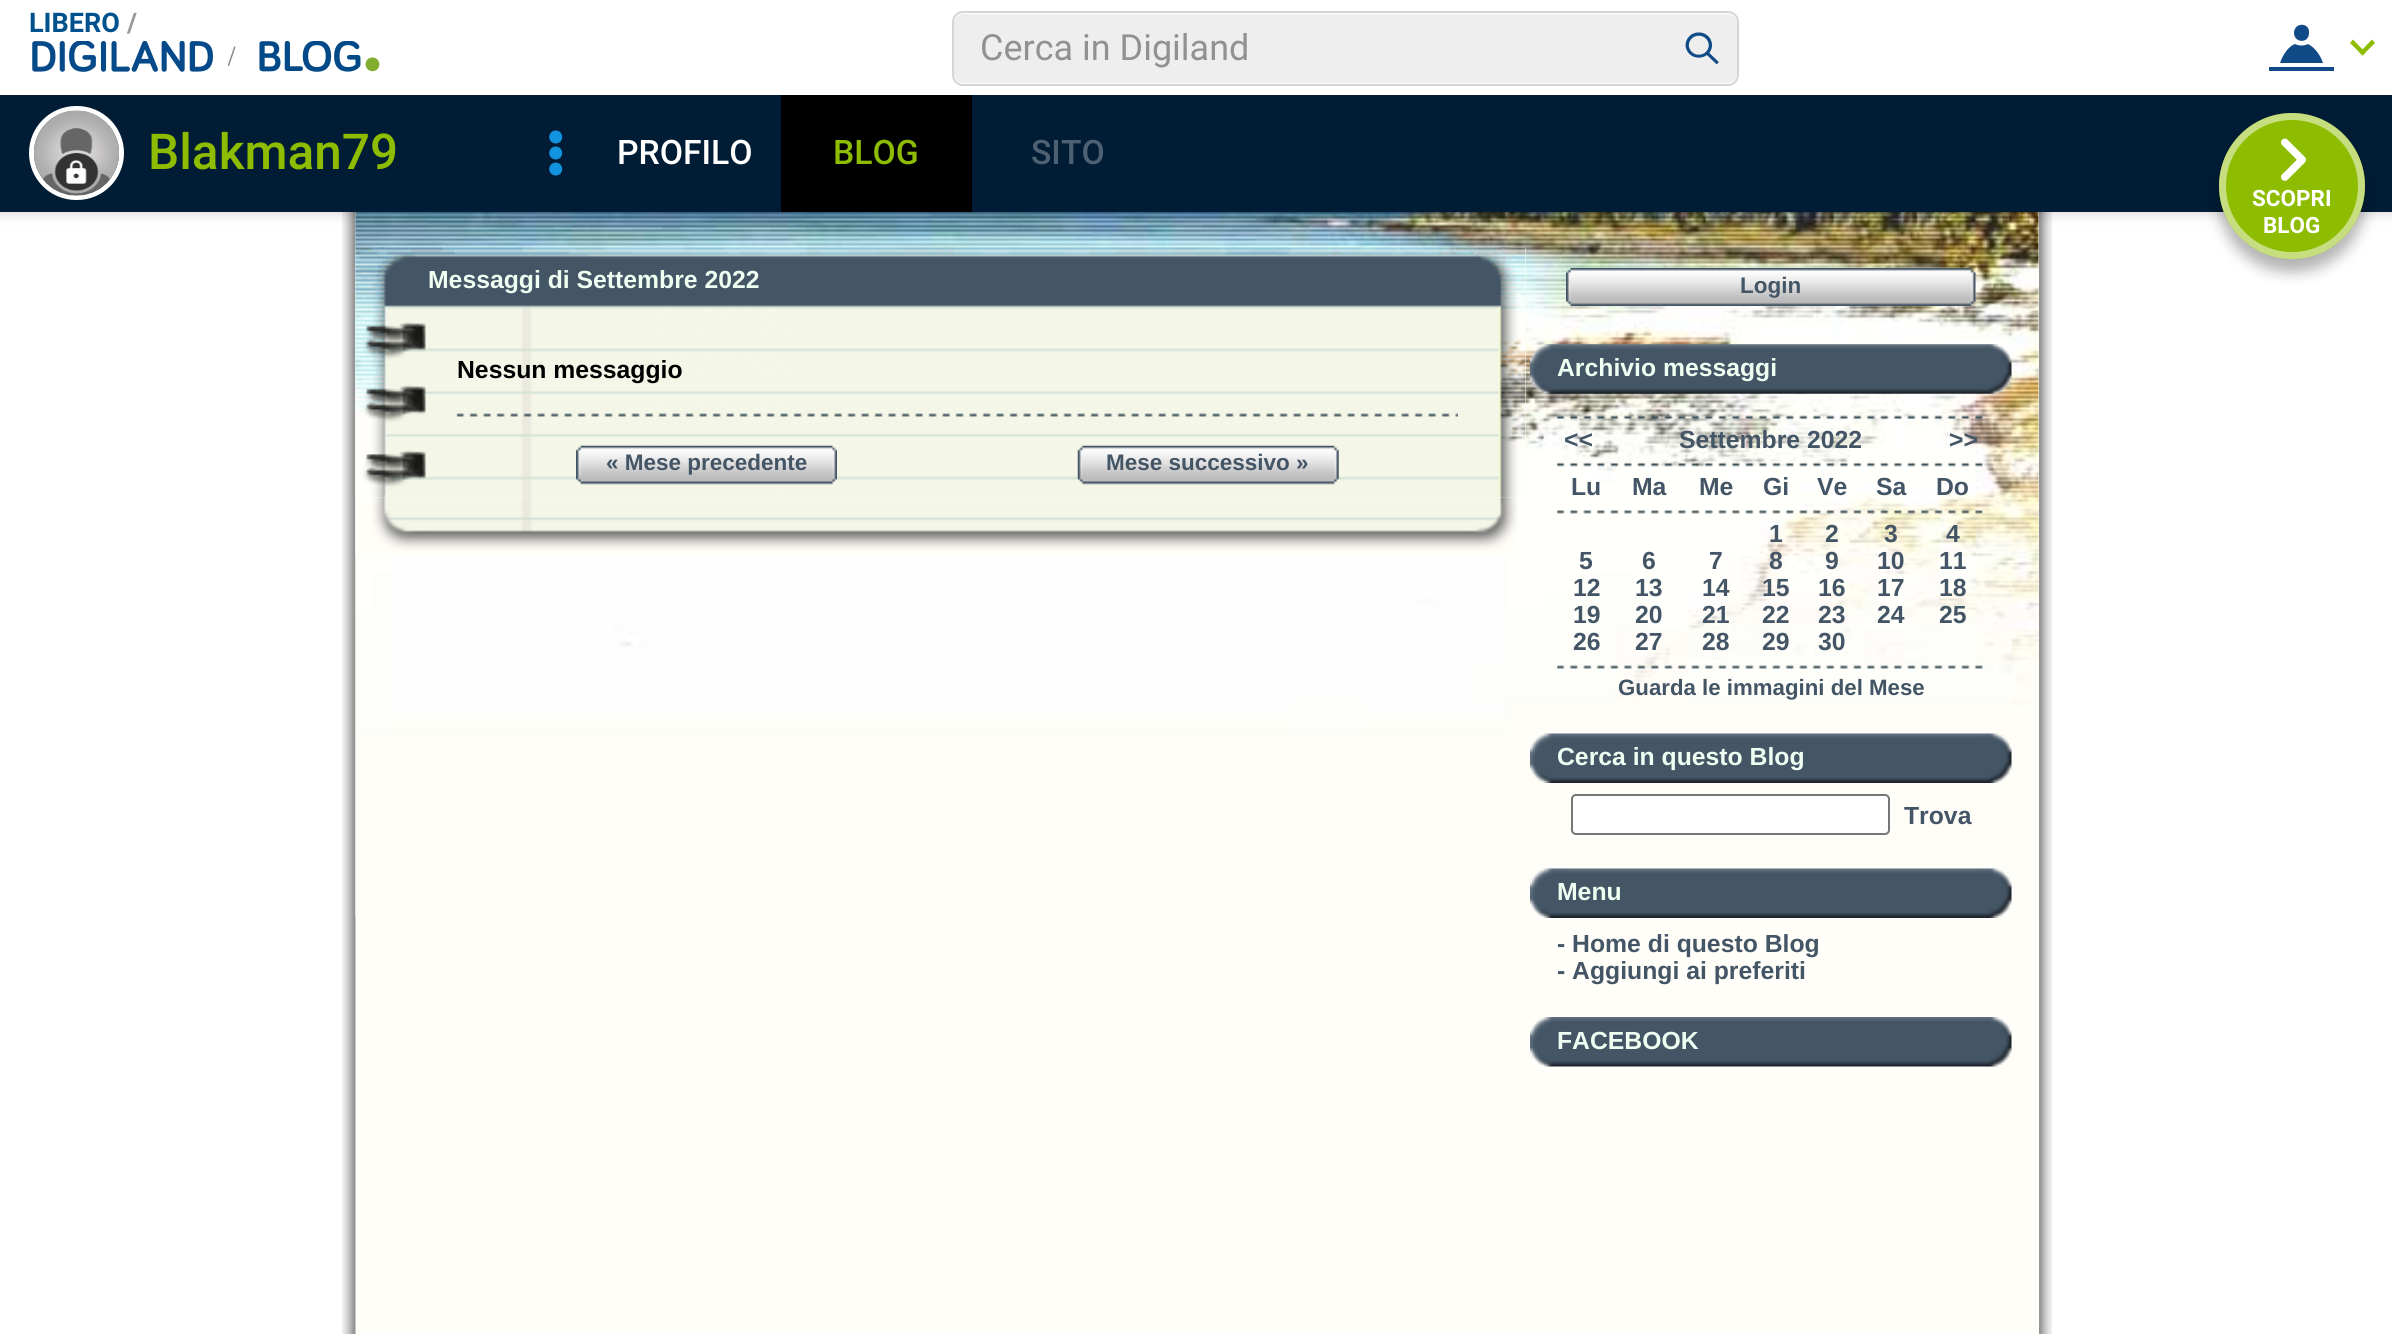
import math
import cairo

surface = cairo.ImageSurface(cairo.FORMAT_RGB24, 2392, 1334)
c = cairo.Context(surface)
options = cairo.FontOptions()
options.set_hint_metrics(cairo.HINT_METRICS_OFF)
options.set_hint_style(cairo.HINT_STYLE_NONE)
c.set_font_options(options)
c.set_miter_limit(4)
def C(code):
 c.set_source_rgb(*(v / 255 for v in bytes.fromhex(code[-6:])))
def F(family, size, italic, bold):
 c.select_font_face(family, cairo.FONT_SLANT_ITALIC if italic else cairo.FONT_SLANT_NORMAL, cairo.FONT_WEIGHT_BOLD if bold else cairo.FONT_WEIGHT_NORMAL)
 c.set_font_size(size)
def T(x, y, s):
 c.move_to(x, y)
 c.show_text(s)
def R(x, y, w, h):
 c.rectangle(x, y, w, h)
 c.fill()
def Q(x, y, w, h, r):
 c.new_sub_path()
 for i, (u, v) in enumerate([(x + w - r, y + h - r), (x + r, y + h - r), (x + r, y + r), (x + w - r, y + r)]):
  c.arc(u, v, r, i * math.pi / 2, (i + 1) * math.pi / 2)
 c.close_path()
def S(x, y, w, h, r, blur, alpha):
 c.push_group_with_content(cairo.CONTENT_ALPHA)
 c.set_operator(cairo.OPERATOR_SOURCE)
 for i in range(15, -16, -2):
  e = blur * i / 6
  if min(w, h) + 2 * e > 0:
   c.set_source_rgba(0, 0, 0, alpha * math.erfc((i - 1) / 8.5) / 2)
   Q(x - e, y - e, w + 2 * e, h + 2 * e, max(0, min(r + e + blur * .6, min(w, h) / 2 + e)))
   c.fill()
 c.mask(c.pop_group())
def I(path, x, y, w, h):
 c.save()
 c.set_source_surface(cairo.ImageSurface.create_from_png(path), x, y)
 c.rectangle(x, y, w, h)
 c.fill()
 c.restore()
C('ffffff')
c.paint()
I('8.png',342,212,1710,1122)
C('fffef9')
R(356,212,1683,1122)
I('9.png',355,212,1684,704)
C('000000')
S(0,0,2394,212,0,7,.2)
C('ffffff')
R(0,0,2392,95)
F('Roboto',27,0,1)
C('00528f')
T(29,32,'LIBERO')
C('999999')
T(127,32,'/')
C('eeeeee')
Q(954,14,783,69,9)
c.fill()
Q(953,12,785,73,10)
C('d5d5d5')
c.stroke()
F('Roboto',36,0,0)
C('919191')
T(980,60,'Cerca in Digiland')
I('1.png',1685,32,34,32)
C('104b87')
c.new_path()
c.move_to(2269,71)
c.line_to(2269,67)
c.line_to(2334,67)
c.line_to(2334,71)
c.close_path()
c.move_to(2280,63)
c.curve_to(2283,54,2289,46,2295,44)
c.curve_to(2299,46,2304,46,2308,44)
c.curve_to(2314,47,2320,54,2323,63)
c.close_path()
c.move_to(2294,33)
c.curve_to(2294,22,2310,22,2309,33)
c.curve_to(2309,44,2294,43,2294,33)
c.close_path()
c.fill()
C('8ebc00')
c.new_path()
c.move_to(2372,39.5)
c.line_to(2375,43)
c.line_to(2362.5,55.5)
c.line_to(2359.5,52.5)
c.close_path()
c.fill()
c.new_path()
c.move_to(2353,39.5)
c.line_to(2365.5,52.5)
c.line_to(2362.5,55.5)
c.line_to(2350,43)
c.close_path()
c.fill()
I('2.png',32,41,181,31)
I('3.png',227,46,9,20)
I('4.png',259,41,121,31)
C('001d35')
R(0,95,2392,117)
Q(31.5,108.5,90,89,44.5)
C('ffffff')
c.set_line_width(5)
c.stroke()
I('5.png',33,110,86,86)
F('Roboto Medium',49.5,0,0)
C('8ebc00')
T(148,169,'Blakman79')
I('6.png',549,130,14,46)
F('Roboto Medium',33.75,0,0)
C('ffffff')
T(617,164,'PROFILO')
C('000000')
R(781,95,191,117)
C('8ebc00')
T(833,164,'BLOG')
C('4d6172')
T(1031,164,'SITO')
C('000000')
S(2219,126,146,146,73,7,.3)
C('8ebc00')
c.arc(2292,186,73,0,2 * math.pi)
c.fill()
c.arc(2292,186,69.5,0,2 * math.pi)
c.set_source_rgba(1,1,1,0.5)
c.set_line_width(7)
c.stroke()
I('7.png',2281,138,26,43)
F('Roboto',22.5,0,1)
C('ffffff')
T(2252,206,'SCOPRI')
T(2263,233,'BLOG')
C('f2fbd1')
R(1525,248,1,249)
I('10.png',355,247,1171,251)
I('11.png',355,247,1171,248)
F('Liberation Sans',24.75,0,1)
C('effff2')
T(428,288,'Messaggi di Settembre 2022')
C('000000')
T(457,378,'Nessun messaggio')
I('12.png',456,413,1002,4)
I('13.png',576,445,261,40)
F('Liberation Sans',22.5,0,1)
C('445566')
T(606,470,'« Mese precedente')
I('14.png',1077,445,262,40)
T(1106,470,'Mese successivo »')
I('15.png',355,497,1163,59)
I('16.png',1566,267,410,39)
T(1740,293,'Login')
I('17.png',1530,344,482,50)
F('Liberation Sans',24.75,0,1)
C('effff2')
T(1557,376,'Archivio messaggi')
I('18.png',1557,415,426,5)
C('445566')
T(1564,448,'<<')
T(1679,448,'Settembre 2022')
T(1949,448,'>>')
I('19.png',1557,462,426,5)
T(1571,495,'Lu')
T(1632,495,'Ma')
T(1699,495,'Me')
T(1763,495,'Gi')
T(1817,495,'Ve')
T(1876,495,'Sa')
T(1936,495,'Do')
I('20.png',1557,510,426,4)
T(1769,542,'1')
T(1825,542,'2')
T(1884,542,'3')
T(1946,542,'4')
T(1579,569,'5')
T(1642,569,'6')
T(1709,569,'7')
T(1769,569,'8')
T(1825,569,'9')
T(1877,569,'10')
T(1939,569,'11')
T(1573,596,'12')
T(1635,596,'13')
T(1702,596,'14')
T(1762,596,'15')
T(1818,596,'16')
T(1877,596,'17')
T(1939,596,'18')
T(1573,623,'19')
T(1635,623,'20')
T(1702,623,'21')
T(1762,623,'22')
T(1818,623,'23')
T(1877,623,'24')
T(1939,623,'25')
T(1573,650,'26')
T(1635,650,'27')
T(1702,650,'28')
T(1762,650,'29')
T(1818,650,'30')
I('21.png',1557,665,426,4)
F('Liberation Sans',22.25,0,1)
T(1618,695,'Guarda le immagini del Mese')
I('22.png',1530,733,482,50)
F('Liberation Sans',24.75,0,1)
C('effff2')
T(1557,765,'Cerca in questo Blog')
C('ffffff')
Q(1572,795,317,39,4)
c.fill_preserve()
C('767676')
c.set_line_width(2)
c.stroke()
C('445566')
T(1904,824,'Trova')
I('23.png',1530,868,482,50)
C('effff2')
T(1557,900,'Menu')
C('445566')
T(1557,952,'- Home di questo Blog')
T(1557,979,'- Aggiungi ai preferiti')
I('24.png',1530,1017,482,50)
C('effff2')
T(1557,1049,'FACEBOOK')
surface.write_to_png('o.png')
